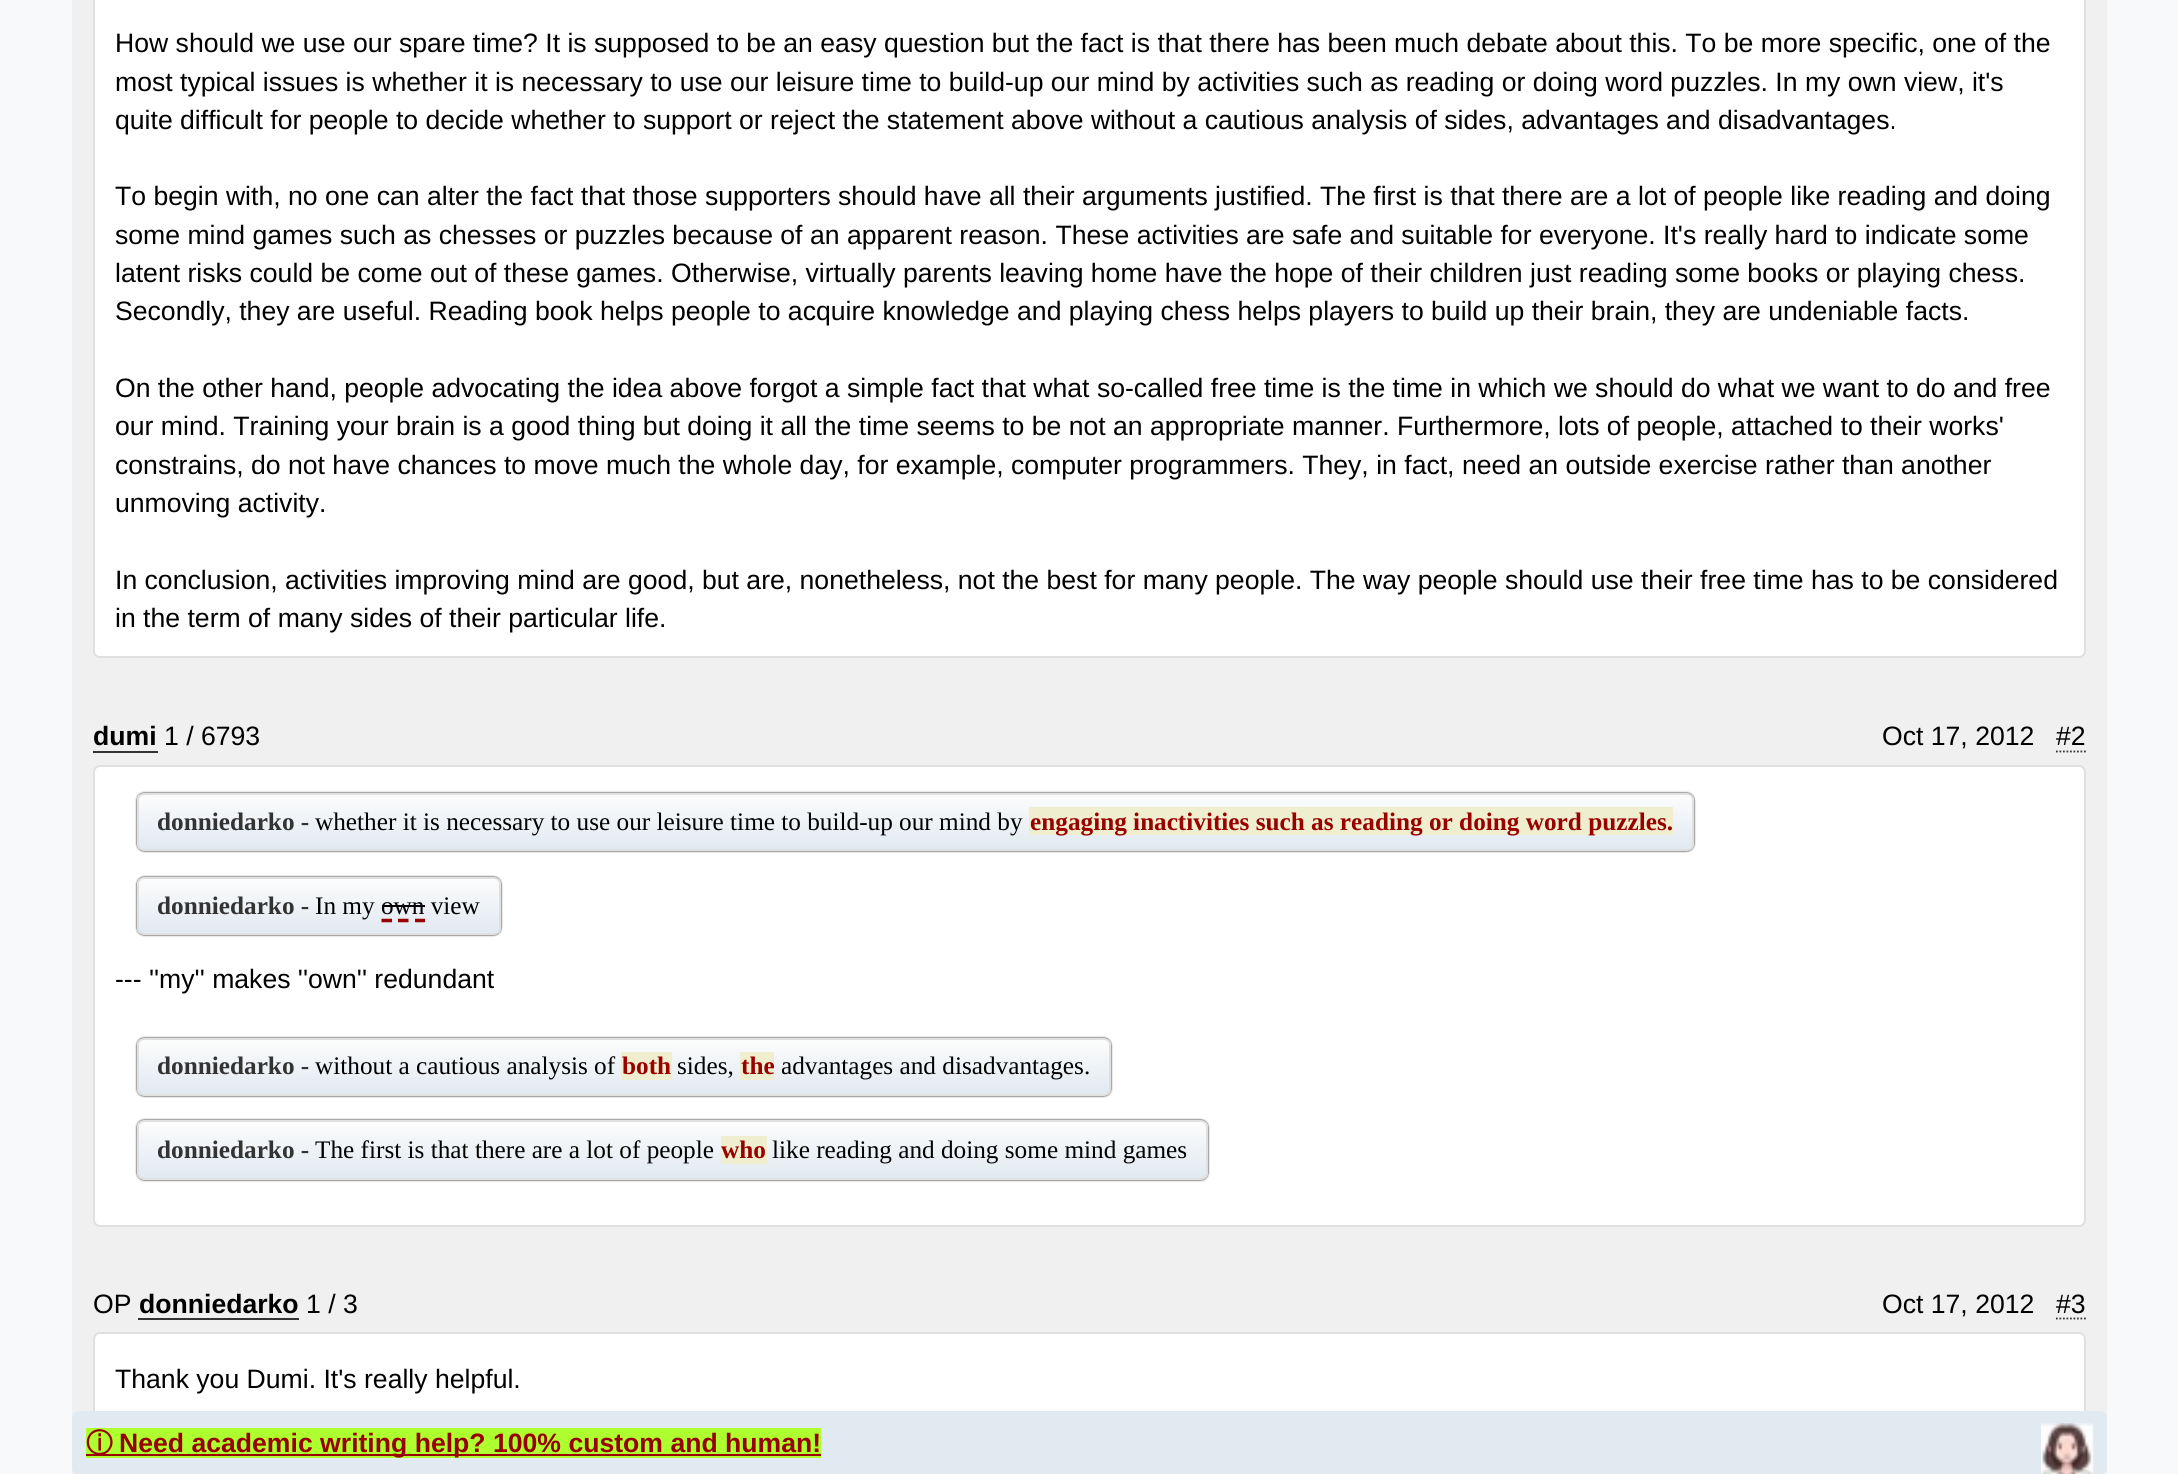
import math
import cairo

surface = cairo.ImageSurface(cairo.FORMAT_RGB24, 2178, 1474)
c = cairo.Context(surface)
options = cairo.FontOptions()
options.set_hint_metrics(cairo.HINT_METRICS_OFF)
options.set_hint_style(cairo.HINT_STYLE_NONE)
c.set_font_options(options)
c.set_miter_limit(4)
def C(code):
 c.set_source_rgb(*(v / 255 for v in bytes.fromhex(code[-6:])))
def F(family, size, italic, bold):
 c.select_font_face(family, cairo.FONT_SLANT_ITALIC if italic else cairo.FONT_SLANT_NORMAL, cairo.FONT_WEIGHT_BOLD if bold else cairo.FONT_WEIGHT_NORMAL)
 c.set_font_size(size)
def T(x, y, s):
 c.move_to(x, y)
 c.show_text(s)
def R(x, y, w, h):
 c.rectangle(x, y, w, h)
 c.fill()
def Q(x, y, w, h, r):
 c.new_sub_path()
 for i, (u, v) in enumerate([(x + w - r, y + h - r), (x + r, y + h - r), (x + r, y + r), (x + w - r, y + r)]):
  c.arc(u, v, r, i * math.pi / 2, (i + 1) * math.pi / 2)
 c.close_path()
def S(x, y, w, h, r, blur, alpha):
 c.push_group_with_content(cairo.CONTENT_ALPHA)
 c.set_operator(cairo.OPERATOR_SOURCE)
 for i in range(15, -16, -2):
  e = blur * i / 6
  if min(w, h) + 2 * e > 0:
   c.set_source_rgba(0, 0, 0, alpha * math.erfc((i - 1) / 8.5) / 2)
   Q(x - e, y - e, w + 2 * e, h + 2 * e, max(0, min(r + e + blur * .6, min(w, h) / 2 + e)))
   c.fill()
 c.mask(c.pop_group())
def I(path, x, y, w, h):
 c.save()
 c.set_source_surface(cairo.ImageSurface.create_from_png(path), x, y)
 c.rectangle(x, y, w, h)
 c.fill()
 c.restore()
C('f7f9fb')
c.paint()
C('f0f0f0')
R(72,0,2035,1474)
C('ffffff')
Q(94,-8,1991,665,6)
c.fill_preserve()
C('e0e0e0')
c.stroke()
F('Liberation Sans',26.6,0,0)
C('000000')
T(115,52,'How should we use our spare time? It is supposed to be an easy question but the fact is that there has been much debate about this. To be more specific, one of the')
T(115,91,'most typical issues is whether it is necessary to use our leisure time to build-up our mind by activities such as reading or doing word puzzles. In my own view, it\'s')
T(115,129,'quite difficult for people to decide whether to support or reject the statement above without a cautious analysis of sides, advantages and disadvantages.')
T(115,205,'To begin with, no one can alter the fact that those supporters should have all their arguments justified. The first is that there are a lot of people like reading and doing')
T(115,244,'some mind games such as chesses or puzzles because of an apparent reason. These activities are safe and suitable for everyone. It\'s really hard to indicate some')
T(115,282,'latent risks could be come out of these games. Otherwise, virtually parents leaving home have the hope of their children just reading some books or playing chess.')
T(115,320,'Secondly, they are useful. Reading book helps people to acquire knowledge and playing chess helps players to build up their brain, they are undeniable facts.')
T(115,397,'On the other hand, people advocating the idea above forgot a simple fact that what so-called free time is the time in which we should do what we want to do and free')
T(115,435,'our mind. Training your brain is a good thing but doing it all the time seems to be not an appropriate manner. Furthermore, lots of people, attached to their works\'')
T(115,474,'constrains, do not have chances to move much the whole day, for example, computer programmers. They, in fact, need an outside exercise rather than another')
T(115,512,'unmoving activity.')
T(115,589,'In conclusion, activities improving mind are good, but are, nonetheless, not the best for many people. The way people should use their free time has to be considered')
T(115,627,'in the term of many sides of their particular life.')
F('Liberation Sans',26.6,0,1)
T(93,745,'dumi')
C('333333')
R(93,751,65,2)
F('Liberation Sans',26.6,0,0)
C('000000')
T(164,745,'1 / 6793')
T(1882,745,'Oct 17, 2012')
T(2056,745,'#2')
c.new_path()
c.move_to(2056,751.5)
c.line_to(2086,751.5)
C('333333')
c.set_line_width(1.8)
c.set_dash([1.75,1.75])
c.stroke()
C('ffffff')
Q(94,766,1991,460,6)
c.fill_preserve()
C('e0e0e0')
c.set_line_width(2)
c.set_dash([])
c.stroke()
C('000000')
S(137,793,1557,58,7,1,1)
c.save()
Q(137,793,1557,58,7)
c.clip()
gradient = cairo.LinearGradient(915,849,915,795)
gradient.add_color_stop_rgba(0,0.882,0.914,0.945,1)
gradient.add_color_stop_rgba(1,0.988,0.988,0.988,1)
c.set_source(gradient)
R(137,795,1557,54)
c.restore()
Q(138,794,1555,56,6)
C('e0e0e0')
c.stroke()
F('Liberation Serif',25.25,0,1)
C('333333')
T(157,830,'donniedarko -')
F('Liberation Serif',25.25,0,0)
C('000000')
T(315,830,'whether it is necessary to use our leisure time to build-up our mind by')
C('efeecf')
R(1029,807,124,28)
F('Liberation Serif',25.25,0,1)
C('990000')
T(1030,830,'engaging in')
C('efeecf')
R(1153,807,520,28)
C('990000')
T(1154,830,'activities such as reading or doing word puzzles.')
C('000000')
S(137,877,364,58,7,1,1)
c.save()
Q(137,877,364,58,7)
c.clip()
gradient = cairo.LinearGradient(319,933,319,879)
gradient.add_color_stop_rgba(0,0.882,0.914,0.945,1)
gradient.add_color_stop_rgba(1,0.988,0.988,0.988,1)
c.set_source(gradient)
R(137,879,364,54)
c.restore()
Q(138,878,362,56,6)
C('e0e0e0')
c.stroke()
C('333333')
T(157,914,'donniedarko -')
F('Liberation Serif',25.25,0,0)
C('000000')
T(315,914,'In my own view')
R(382,905,43,2)
c.new_path()
c.move_to(381.5,920.5)
c.line_to(392,920.5)
c.move_to(398,920.5)
c.line_to(408.5,920.5)
c.move_to(415,920.5)
c.line_to(425,920.5)
C('990000')
c.set_line_width(3.5)
c.stroke()
F('Liberation Sans',26.6,0,0)
C('000000')
T(115,988,'--- \'\'my\'\' makes \'\'own\'\' redundant')
C('000000')
S(137,1038,974,58,7,1,1)
c.save()
Q(137,1038,974,58,7)
c.clip()
gradient = cairo.LinearGradient(624,1094,624,1040)
gradient.add_color_stop_rgba(0,0.882,0.914,0.945,1)
gradient.add_color_stop_rgba(1,0.988,0.988,0.988,1)
c.set_source(gradient)
R(137,1040,974,54)
c.restore()
Q(138,1039,972,56,6)
C('e0e0e0')
c.set_line_width(2)
c.stroke()
F('Liberation Serif',25.25,0,1)
C('333333')
T(157,1074,'donniedarko -')
F('Liberation Serif',25.25,0,0)
C('000000')
T(315,1074,'without a cautious analysis of')
C('efeecf')
R(621,1052,51,28)
F('Liberation Serif',25.25,0,1)
C('990000')
T(622,1074,'both')
F('Liberation Serif',25.25,0,0)
C('000000')
T(677,1074,'sides,')
C('efeecf')
R(740,1052,34,28)
F('Liberation Serif',25.25,0,1)
C('990000')
T(741,1074,'the')
F('Liberation Serif',25.25,0,0)
C('000000')
T(781,1074,'advantages and disadvantages.')
C('000000')
S(137,1120,1071,60,7,1,1)
c.save()
Q(137,1120,1071,60,7)
c.clip()
gradient = cairo.LinearGradient(672,1178,672,1122)
gradient.add_color_stop_rgba(0,0.882,0.914,0.945,1)
gradient.add_color_stop_rgba(1,0.988,0.988,0.988,1)
c.set_source(gradient)
R(137,1122,1071,56)
c.restore()
Q(138,1121,1069,58,6)
C('e0e0e0')
c.stroke()
F('Liberation Serif',25.25,0,1)
C('333333')
T(157,1158,'donniedarko -')
F('Liberation Serif',25.25,0,0)
C('000000')
T(315,1158,'The first is that there are a lot of people')
C('efeecf')
R(721,1136,46,28)
F('Liberation Serif',25.25,0,1)
C('990000')
T(721,1158,'who')
F('Liberation Serif',25.25,0,0)
C('000000')
T(772,1158,'like reading and doing some mind games')
F('Liberation Sans',26.6,0,0)
T(93,1313,'OP')
F('Liberation Sans',26.6,0,1)
T(139,1313,'donniedarko')
C('333333')
R(138,1318,161,2)
F('Liberation Sans',26.6,0,0)
C('000000')
T(306,1313,'1 / 3')
T(1882,1313,'Oct 17, 2012')
T(2056,1313,'#3')
c.new_path()
c.move_to(2056,1318.5)
c.line_to(2086,1318.5)
C('333333')
c.set_line_width(1.8)
c.set_dash([1.75,1.75])
c.stroke()
C('ffffff')
Q(94,1333,1991,124,6)
c.fill_preserve()
C('e0e0e0')
c.set_line_width(2)
c.set_dash([])
c.stroke()
C('000000')
T(115,1388,'Thank you Dumi. It\'s really helpful.')
C('e1e9f1')
Q(72,1411,2035,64,7)
c.fill()
C('adff2f')
R(86,1428,735,30)
C('990000')
R(86,1454,735,2)
F('WenQuanYi Zen Hei',26.6,0,1)
T(86,1452,'ⓘ')
F('Liberation Sans',26.6,0,1)
T(119,1452,'Need academic writing help? 100% custom and human!')
I('1.png',2041,1423,53,51)
surface.write_to_png('o.png')
